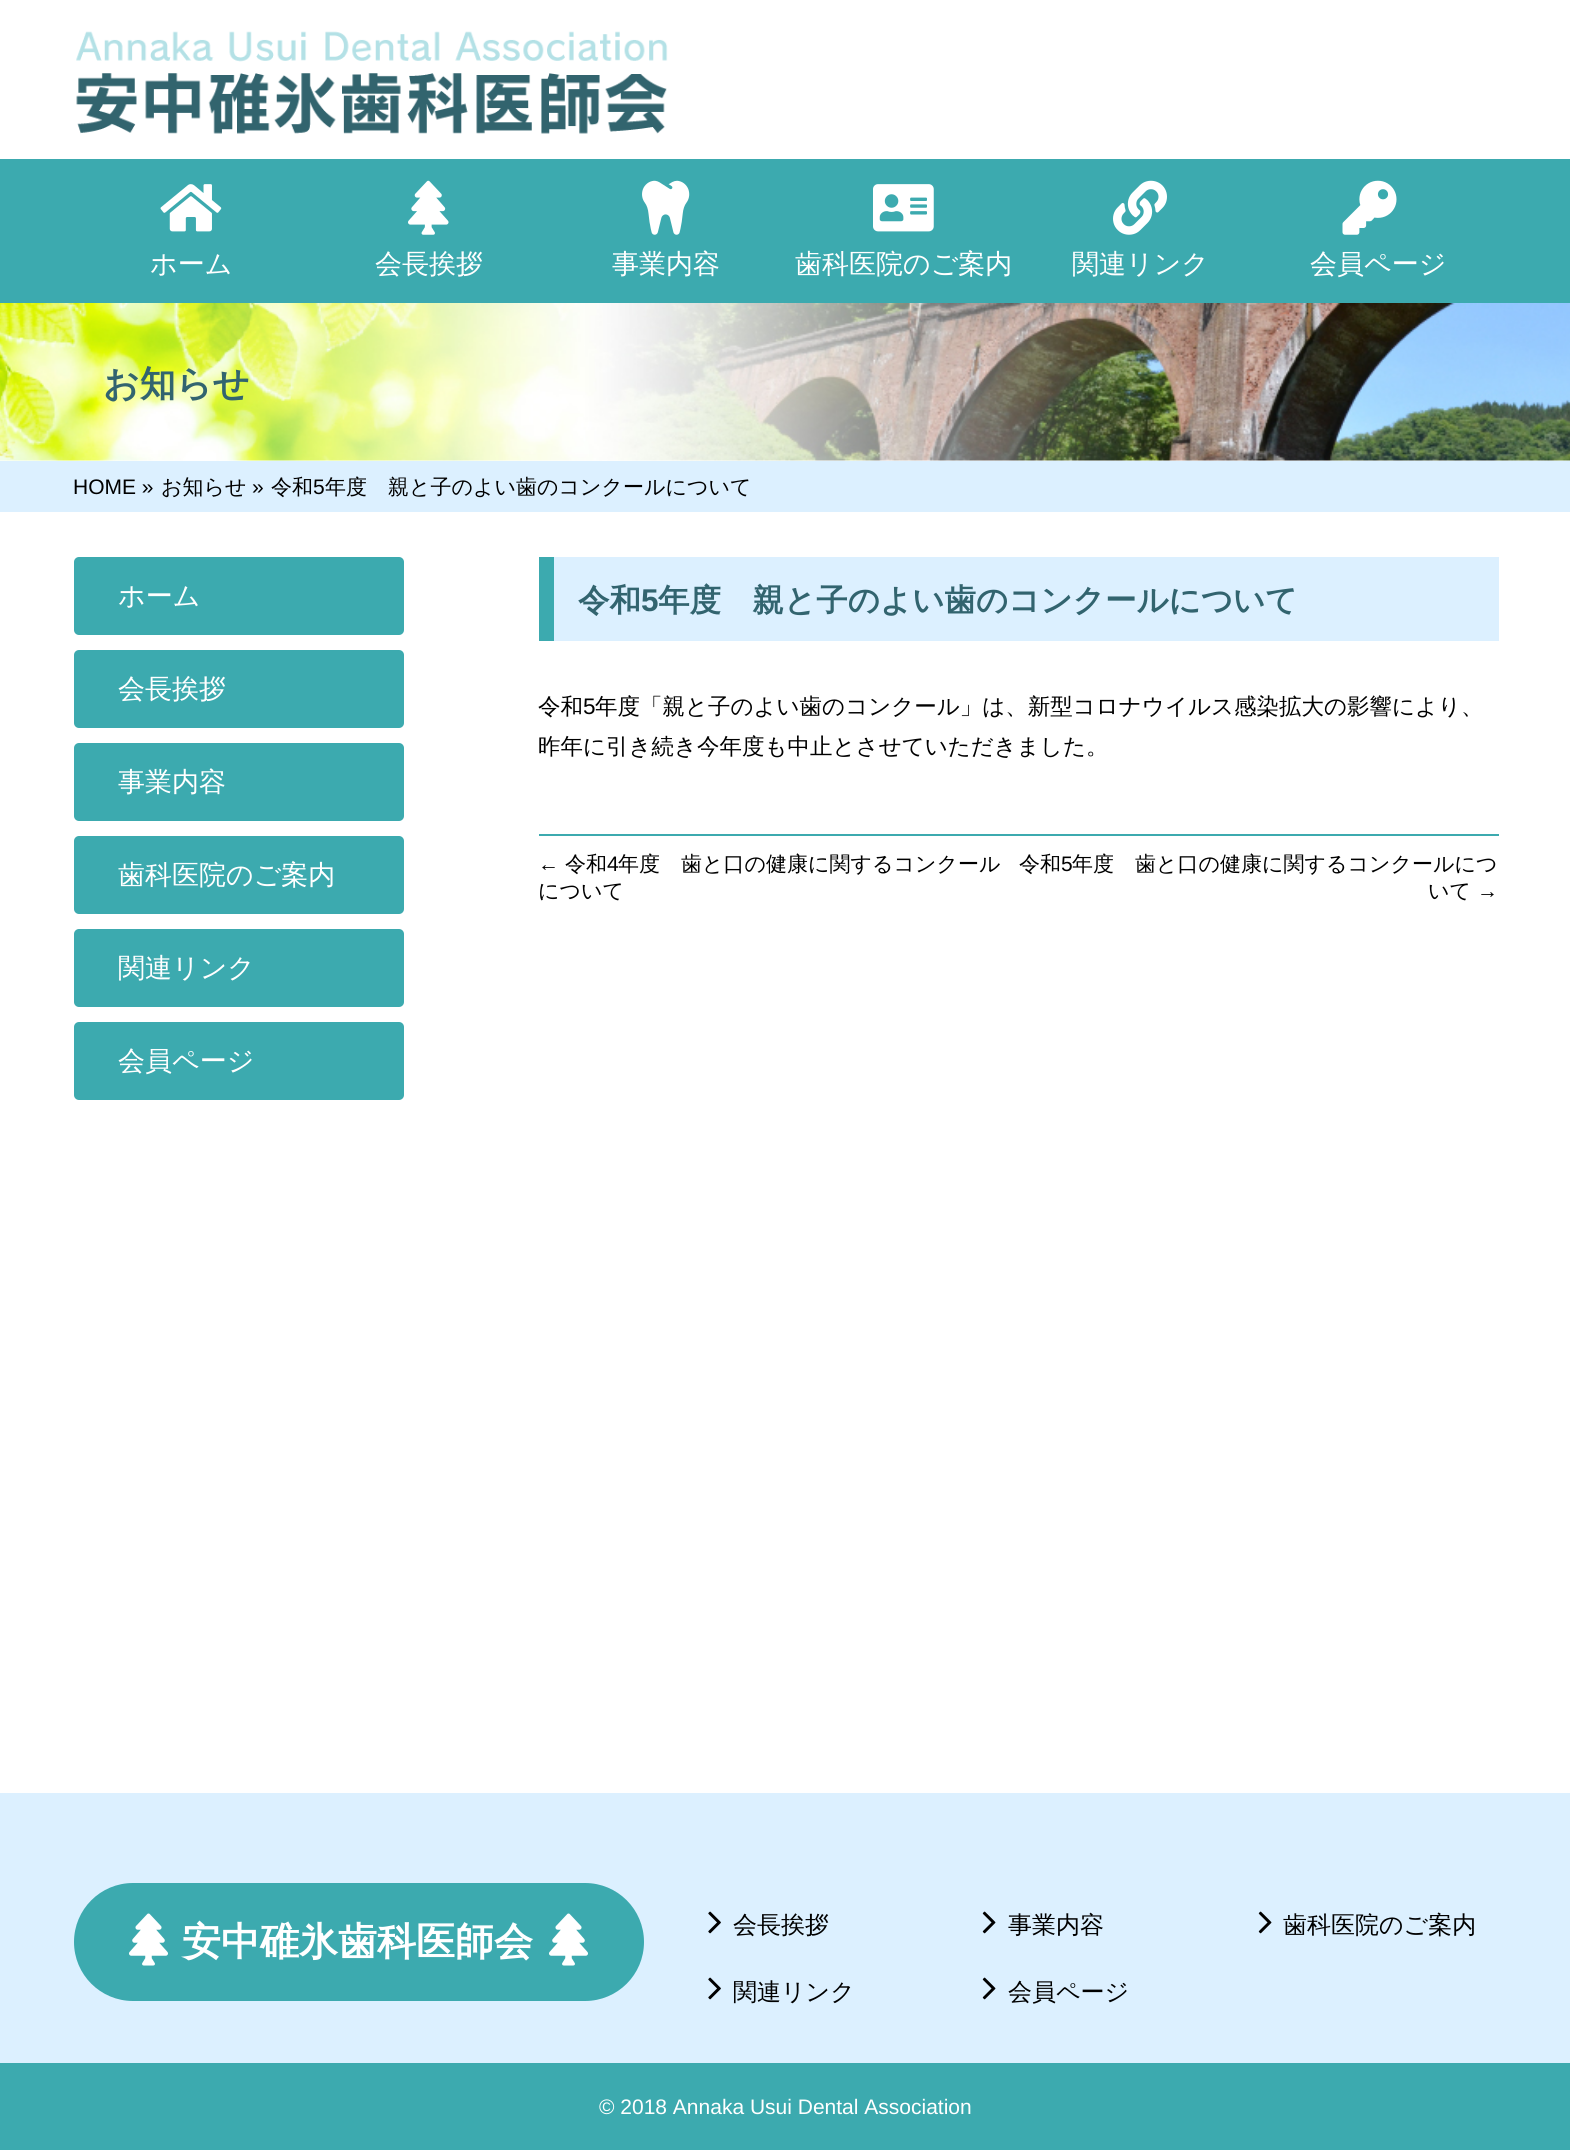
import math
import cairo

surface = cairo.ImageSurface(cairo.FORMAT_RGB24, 1570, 2151)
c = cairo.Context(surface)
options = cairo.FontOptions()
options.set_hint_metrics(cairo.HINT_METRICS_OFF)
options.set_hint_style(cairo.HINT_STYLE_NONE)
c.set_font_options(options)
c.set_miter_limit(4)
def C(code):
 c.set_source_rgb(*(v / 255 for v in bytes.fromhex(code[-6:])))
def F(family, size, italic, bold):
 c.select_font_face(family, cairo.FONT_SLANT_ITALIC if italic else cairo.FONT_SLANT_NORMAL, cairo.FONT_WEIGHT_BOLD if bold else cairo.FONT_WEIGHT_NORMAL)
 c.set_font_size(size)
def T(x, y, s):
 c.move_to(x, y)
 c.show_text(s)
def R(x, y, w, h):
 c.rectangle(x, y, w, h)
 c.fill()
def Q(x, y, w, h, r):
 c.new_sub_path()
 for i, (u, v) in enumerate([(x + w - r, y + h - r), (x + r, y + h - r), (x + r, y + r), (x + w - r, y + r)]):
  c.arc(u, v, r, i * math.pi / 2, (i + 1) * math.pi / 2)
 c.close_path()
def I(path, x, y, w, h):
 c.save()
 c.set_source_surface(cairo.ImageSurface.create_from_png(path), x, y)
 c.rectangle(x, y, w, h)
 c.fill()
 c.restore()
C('ffffff')
c.paint()
I('1.png',76,31,592,103)
C('3caaaf')
R(0,159,1570,144)
I('2.png',160,184,62,48)
F('WenQuanYi Zen Hei Medium',27,0,0)
C('ffffff')
T(150,273,'ホーム')
I('3.png',408,180,41,55)
T(375,273,'会長挨拶')
I('4.png',642,180,48,55)
T(612,273,'事業内容')
I('5.png',873,184,61,48)
T(795,273,'歯科医院のご案内')
I('6.png',1113,180,54,55)
T(1072,273,'関連リンク')
I('7.png',1342,180,55,55)
T(1310,273,'会員ページ')
I('8.png',0,303,1570,158)
F('WenQuanYi Zen Hei',36,0,1)
C('32646f')
T(103,396,'お知らせ')
C('dcf0ff')
R(0,461,1570,51)
F('Liberation Sans',21,0,0)
C('000000')
T(73,494,'HOME »')
F('WenQuanYi Zen Hei Medium',21,0,0)
T(161,494,'お知らせ')
F('Liberation Sans',21,0,0)
T(252,494,'»')
F('WenQuanYi Zen Hei Medium',21,0,0)
T(271,494,'令和')
F('Liberation Sans',21,0,0)
T(313,494,'5')
F('WenQuanYi Zen Hei Medium',21,0,0)
T(325,494,'年度　親と子のよい歯のコンクールについて')
C('3caaaf')
Q(74,557,330,78,5)
c.fill()
F('WenQuanYi Zen Hei Medium',27,0,0)
C('ffffff')
T(118,605,'ホーム')
C('3caaaf')
Q(74,650,330,78,5)
c.fill()
C('ffffff')
T(118,698,'会長挨拶')
C('3caaaf')
Q(74,743,330,78,5)
c.fill()
C('ffffff')
T(118,791,'事業内容')
C('3caaaf')
Q(74,836,330,78,5)
c.fill()
C('ffffff')
T(118,884,'歯科医院のご案内')
C('3caaaf')
Q(74,929,330,78,5)
c.fill()
C('ffffff')
T(118,977,'関連リンク')
C('3caaaf')
Q(74,1022,330,78,5)
c.fill()
C('ffffff')
T(118,1070,'会員ページ')
C('dcf0ff')
R(554,557,945,84)
C('3caaaf')
R(539,557,15,84)
F('WenQuanYi Zen Hei',31.5,0,1)
C('32646f')
T(578,611,'令和')
F('Liberation Sans',31.5,0,1)
T(641,611,'5')
F('WenQuanYi Zen Hei',31.5,0,1)
T(658,611,'年度　親と子のよい歯のコンクールについて')
F('WenQuanYi Zen Hei Medium',22.5,0,0)
C('000000')
T(538,714,'令和')
F('Liberation Sans',22.5,0,0)
T(583,714,'5')
F('WenQuanYi Zen Hei Medium',22.5,0,0)
T(595,714,'年度「親と子のよい歯のコンクール」は、新型コロナウイルス感染拡大の影響により、')
T(538,754,'昨年に引き続き今年度も中止とさせていただきました。')
C('3caaaf')
R(539,834,960,2)
F('Liberation Sans',21,0,0)
C('000000')
T(538,871,'←')
F('WenQuanYi Zen Hei Medium',21,0,0)
T(565,871,'令和')
F('Liberation Sans',21,0,0)
T(607,871,'4')
F('WenQuanYi Zen Hei Medium',21,0,0)
T(618,871,'年度　歯と口の健康に関するコンクール')
T(538,898,'について')
T(1019,871,'令和')
F('Liberation Sans',21,0,0)
T(1061,871,'5')
F('WenQuanYi Zen Hei Medium',21,0,0)
T(1072,871,'年度　歯と口の健康に関するコンクールにつ')
T(1428,898,'いて')
F('Liberation Sans',21,0,0)
T(1477,898,'→')
C('dcf0ff')
R(0,1793,1570,270)
C('3caaaf')
Q(74,1883,570,118,59)
c.fill()
I('9.png',129,1913,39,53)
F('WenQuanYi Zen Hei',39,0,1)
C('ffffff')
T(182,1955,'安中碓氷歯科医師会')
I('9.png',549,1913,39,53)
I('10.png',708,1911,13,23)
F('WenQuanYi Zen Hei Medium',24,0,0)
C('000000')
T(733,1933,'会長挨拶')
I('11.png',982,1911,14,23)
T(1008,1933,'事業内容')
I('11.png',1258,1911,14,23)
T(1283,1933,'歯科医院のご案内')
I('10.png',708,1977,13,23)
T(733,2000,'関連リンク')
I('11.png',982,1977,14,23)
T(1008,2000,'会員ページ')
C('3caaaf')
R(0,2063,1570,87)
F('Liberation Sans',21,0,0)
C('ffffff')
T(599,2114,'© 2018 Annaka Usui Dental Association')
surface.write_to_png('o.png')
